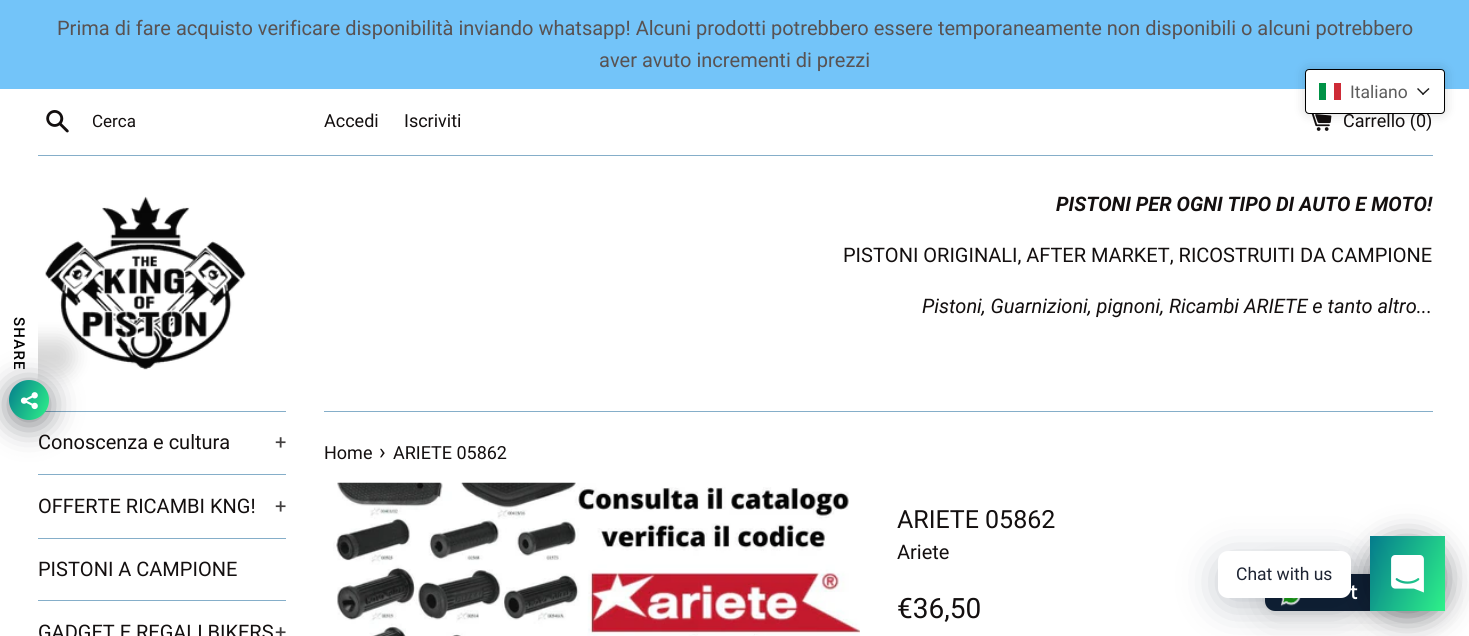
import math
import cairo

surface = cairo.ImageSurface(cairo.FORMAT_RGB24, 1469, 636)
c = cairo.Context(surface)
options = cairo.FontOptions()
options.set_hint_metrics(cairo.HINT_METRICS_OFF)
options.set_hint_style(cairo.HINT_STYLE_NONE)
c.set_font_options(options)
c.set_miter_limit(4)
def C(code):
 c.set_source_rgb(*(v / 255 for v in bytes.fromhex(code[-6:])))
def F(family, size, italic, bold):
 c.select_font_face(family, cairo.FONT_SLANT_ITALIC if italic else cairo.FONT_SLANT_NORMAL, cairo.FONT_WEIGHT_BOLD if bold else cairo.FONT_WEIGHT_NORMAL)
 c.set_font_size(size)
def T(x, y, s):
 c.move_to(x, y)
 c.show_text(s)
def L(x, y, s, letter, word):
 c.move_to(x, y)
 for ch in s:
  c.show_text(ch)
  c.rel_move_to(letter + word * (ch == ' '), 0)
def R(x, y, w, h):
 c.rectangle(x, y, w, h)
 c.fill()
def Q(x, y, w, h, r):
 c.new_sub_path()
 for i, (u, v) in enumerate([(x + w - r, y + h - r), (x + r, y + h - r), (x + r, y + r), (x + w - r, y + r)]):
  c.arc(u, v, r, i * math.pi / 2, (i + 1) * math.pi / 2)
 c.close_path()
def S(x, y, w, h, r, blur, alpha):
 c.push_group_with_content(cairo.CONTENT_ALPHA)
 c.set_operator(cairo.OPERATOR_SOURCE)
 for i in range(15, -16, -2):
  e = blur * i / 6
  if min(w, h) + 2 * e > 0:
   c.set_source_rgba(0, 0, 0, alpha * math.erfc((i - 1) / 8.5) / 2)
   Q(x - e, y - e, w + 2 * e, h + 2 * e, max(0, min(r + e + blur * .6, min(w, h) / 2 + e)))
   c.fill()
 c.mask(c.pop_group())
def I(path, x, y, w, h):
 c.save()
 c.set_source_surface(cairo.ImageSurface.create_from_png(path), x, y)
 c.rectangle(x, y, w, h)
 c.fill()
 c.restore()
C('ffffff')
c.paint()
C('73c4f9')
R(0,0,1469,89)
F('Roboto',20,0,0)
C('585252')
T(57,35,'Prima di fare acquisto verificare disponibilità inviando whatsapp! Alcuni prodotti potrebbero essere temporaneamente non disponibili o alcuni potrebbero')
T(599,67,'aver avuto incrementi di prezzi')
I('1.png',46,110,23,23)
F('Roboto',17,0,0)
C('130f0f')
T(92,127,'Cerca')
F('Roboto',18,0,0)
T(324,127,'Accedi')
T(404,127,'Iscriviti')
I('2.png',1308,113,24,18)
T(1343,127,'Carrello (0)')
C('85aec9')
R(38,155,1395,1)
I('3.png',45,196,201,174)
F('Roboto',20,1,1)
C('130f0f')
T(1056,211,'PISTONI PER OGNI TIPO DI AUTO E MOTO!')
F('Roboto',20,0,0)
T(843,262,'PISTONI ORIGINALI, AFTER MARKET, RICOSTRUITI DA CAMPIONE')
F('Roboto',20,1,0)
T(922,313,'Pistoni, Guarnizioni, pignoni, Ricambi ARIETE e tanto altro...')
C('000000')
S(1305,69,140,45,4,6,.15)
C('ffffff')
Q(1305.5,69.5,139,44,3.5)
c.fill_preserve()
C('000000')
c.set_line_width(1)
c.stroke()
C('009246')
R(1319,83,7,17)
C('ce2b37')
R(1334,83,7,17)
F('Roboto',17.5,0,0)
C('5c5c5c')
T(1350,98,'Italiano')
C('1a1a1a')
c.new_path()
c.move_to(1428.5,88)
c.line_to(1429.5,89)
c.line_to(1423,95)
c.line_to(1422,94)
c.close_path()
c.fill()
c.new_path()
c.move_to(1418,88)
c.line_to(1424,94)
c.line_to(1423,95)
c.line_to(1417,89)
c.close_path()
c.fill()
C('000000')
S(-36,338,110,37,35,9,.15)
C('ffffff')
c.new_path()
c.move_to(0,408)
c.line_to(0,298)
c.line_to(32,298)
c.curve_to(35,298,38,300,38,303)
c.line_to(38,373)
c.curve_to(38,392,22,408,2,408)
c.close_path()
c.fill()
F('Roboto Medium',15,0,0)
C('000000')
c.save()
c.translate(14,317)
c.rotate(90 * math.pi / 180)
L(0,0,'SHARE',1.25,0)
c.restore()
C('85aec9')
R(38,411,248,1)
C('020610')
S(9,385,40,40,20,15,.5)
gradient = cairo.LinearGradient(4.7,389,53,411)
gradient.add_color_stop_rgba(0,0.016,0.486,0.553,1)
gradient.add_color_stop_rgba(1,0.184,0.949,0.537,1)
c.set_source(gradient)
c.arc(29,400,20,0,2 * math.pi)
c.fill()
I('4.png',20,392,18,18)
C('000000')
S(1265,576,175,38,10,20,.16)
S(1265,575,175,38,10,4,.06)
C('102033')
Q(1265,574,175,37,10)
c.fill()
C('020610')
S(1370,541,75,75,37.5,15,.5)
gradient = cairo.LinearGradient(1362,553,1453,595)
gradient.add_color_stop_rgba(0,0.016,0.486,0.553,1)
gradient.add_color_stop_rgba(1,0.184,0.949,0.537,1)
c.set_source(gradient)
R(1370,536,75,75)
I('7.png',1280,598,21,9)
C('00122e')
S(1218,559,133,46,10,20,.24)
C('ffffff')
Q(1218,551,133,47,10)
c.fill()
F('Roboto',17.5,0,0)
C('1e2433')
T(1236,580,'Chat with us')
I('5.png',1391,555,33,38)
C('85aec9')
R(38,474,248,1)
F('Roboto',20,0,0)
C('130f0f')
T(38,449,'Conoscenza e cultura')
C('423f3f')
T(275,449,'+')
C('85aec9')
R(38,538,248,1)
C('130f0f')
T(38,513,'OFFERTE RICAMBI KNG!')
C('423f3f')
T(275,513,'+')
C('85aec9')
R(38,600,248,1)
C('130f0f')
T(38,576,'PISTONI A CAMPIONE')
T(38,639,'GADGET E REGALI BIKERS')
C('423f3f')
T(275,639,'+')
C('85aec9')
R(324,411,1109,1)
F('Roboto',18,0,0)
C('130f0f')
T(324,459,'Home')
F('Roboto',22,0,0)
T(379,459,'›')
F('Roboto',18,0,0)
T(393,459,'ARIETE 05862')
I('6.png',333,482,527,154)
F('Roboto',25,0,0)
T(897,528,'ARIETE 05862')
F('Roboto',20,0,0)
T(897,559,'Ariete')
F('Roboto',28,0,0)
T(897,618,'€36,50')
F('Muli',20,0,1)
C('ffffff')
T(1350,599,'t')
surface.write_to_png('o.png')
